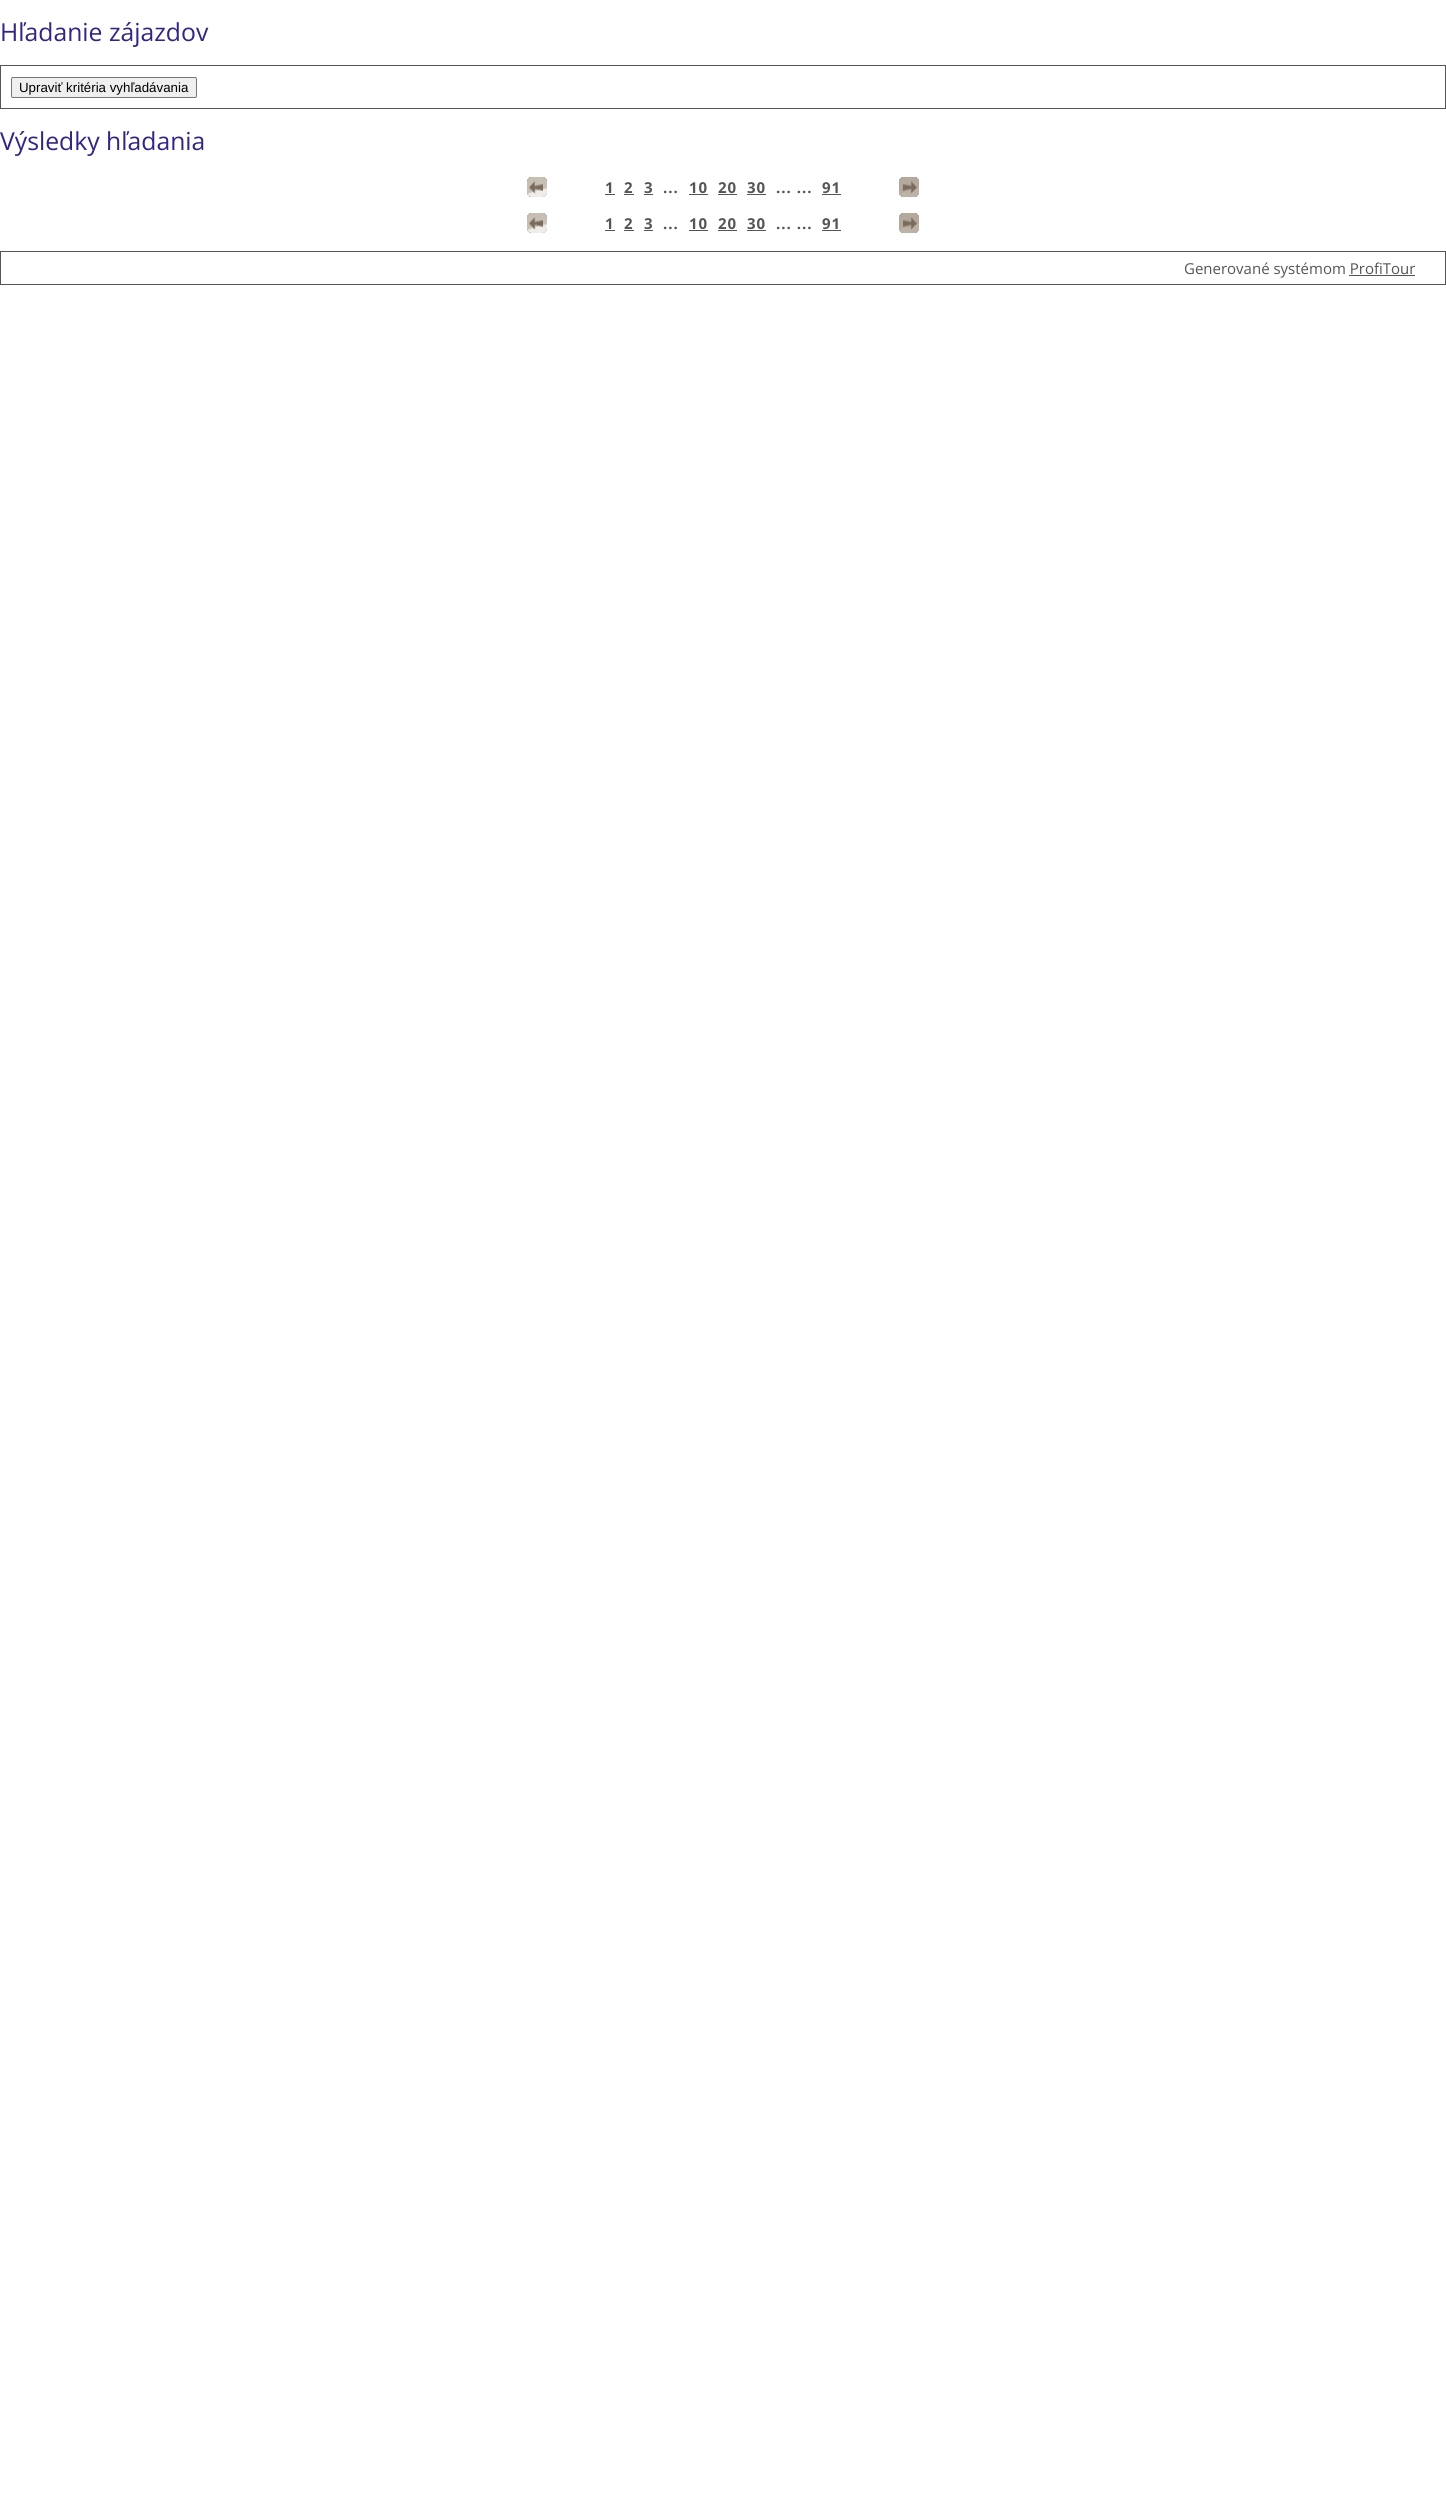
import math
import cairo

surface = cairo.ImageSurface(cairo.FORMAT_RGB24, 1446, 2502)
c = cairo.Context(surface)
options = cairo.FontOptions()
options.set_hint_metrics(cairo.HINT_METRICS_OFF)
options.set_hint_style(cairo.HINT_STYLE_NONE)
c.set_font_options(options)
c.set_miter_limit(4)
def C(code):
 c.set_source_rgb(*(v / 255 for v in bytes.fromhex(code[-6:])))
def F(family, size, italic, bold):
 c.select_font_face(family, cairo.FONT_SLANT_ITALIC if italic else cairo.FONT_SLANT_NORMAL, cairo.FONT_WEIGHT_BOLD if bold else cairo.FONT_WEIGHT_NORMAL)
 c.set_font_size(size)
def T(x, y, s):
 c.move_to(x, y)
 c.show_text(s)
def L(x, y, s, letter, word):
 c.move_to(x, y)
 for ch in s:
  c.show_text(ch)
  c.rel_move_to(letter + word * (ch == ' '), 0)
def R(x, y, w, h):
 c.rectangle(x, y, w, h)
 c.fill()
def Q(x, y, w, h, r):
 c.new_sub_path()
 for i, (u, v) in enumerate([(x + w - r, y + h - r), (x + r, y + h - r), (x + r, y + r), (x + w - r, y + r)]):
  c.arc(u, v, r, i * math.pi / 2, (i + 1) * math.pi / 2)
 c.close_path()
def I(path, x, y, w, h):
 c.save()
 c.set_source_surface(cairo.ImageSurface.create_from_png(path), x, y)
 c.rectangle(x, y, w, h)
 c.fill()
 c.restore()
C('ffffff')
c.paint()
F('Open Sans',24.75,0,0)
C('352482')
T(0,41,'Hľadanie zájazdov')
c.rectangle(.5,65.5,1445,43)
C('555555')
c.set_line_width(1)
c.stroke()
C('efefef')
Q(11.5,77.5,185,20,1.5)
c.fill_preserve()
C('767676')
c.stroke()
F('Liberation Sans',13.3,0,0)
C('000000')
T(19,92,'Upraviť kritéria vyhľadávania')
F('Open Sans',24.75,0,0)
C('352482')
T(0,150,'Výsledky hľadania')
I('1.png',527,177,20,20)
F('Open Sans',15,0,1)
C('555555')
L(605,193,'1',1,0)
R(605,194,10,1)
L(624,193,'2',1,0)
R(624,194,10,1)
L(644,193,'3',1,0)
R(644,194,9,1)
L(663,193,'...',1,0)
L(689,193,'10',1,0)
R(689,194,19,1)
L(718,193,'20',1,0)
R(718,194,19,1)
L(747,193,'30',1,0)
R(747,194,19,1)
L(776,193,'... ...',1,0)
L(822,193,'91',1,0)
R(822,194,19,1)
I('2.png',899,177,20,20)
I('1.png',527,213,20,20)
L(605,229,'1',1,0)
R(605,230,10,1)
L(624,229,'2',1,0)
R(624,230,10,1)
L(644,229,'3',1,0)
R(644,230,9,1)
L(663,229,'...',1,0)
L(689,229,'10',1,0)
R(689,230,19,1)
L(718,229,'20',1,0)
R(718,230,19,1)
L(747,229,'30',1,0)
R(747,230,19,1)
L(776,229,'... ...',1,0)
L(822,229,'91',1,0)
R(822,230,19,1)
I('2.png',899,213,20,20)
c.rectangle(.5,251.5,1445,33)
c.stroke()
F('Open Sans',15,0,0)
T(1184,274,'Generované systémom ProfiTour')
R(1349,275,66,1)
surface.write_to_png('o.png')
